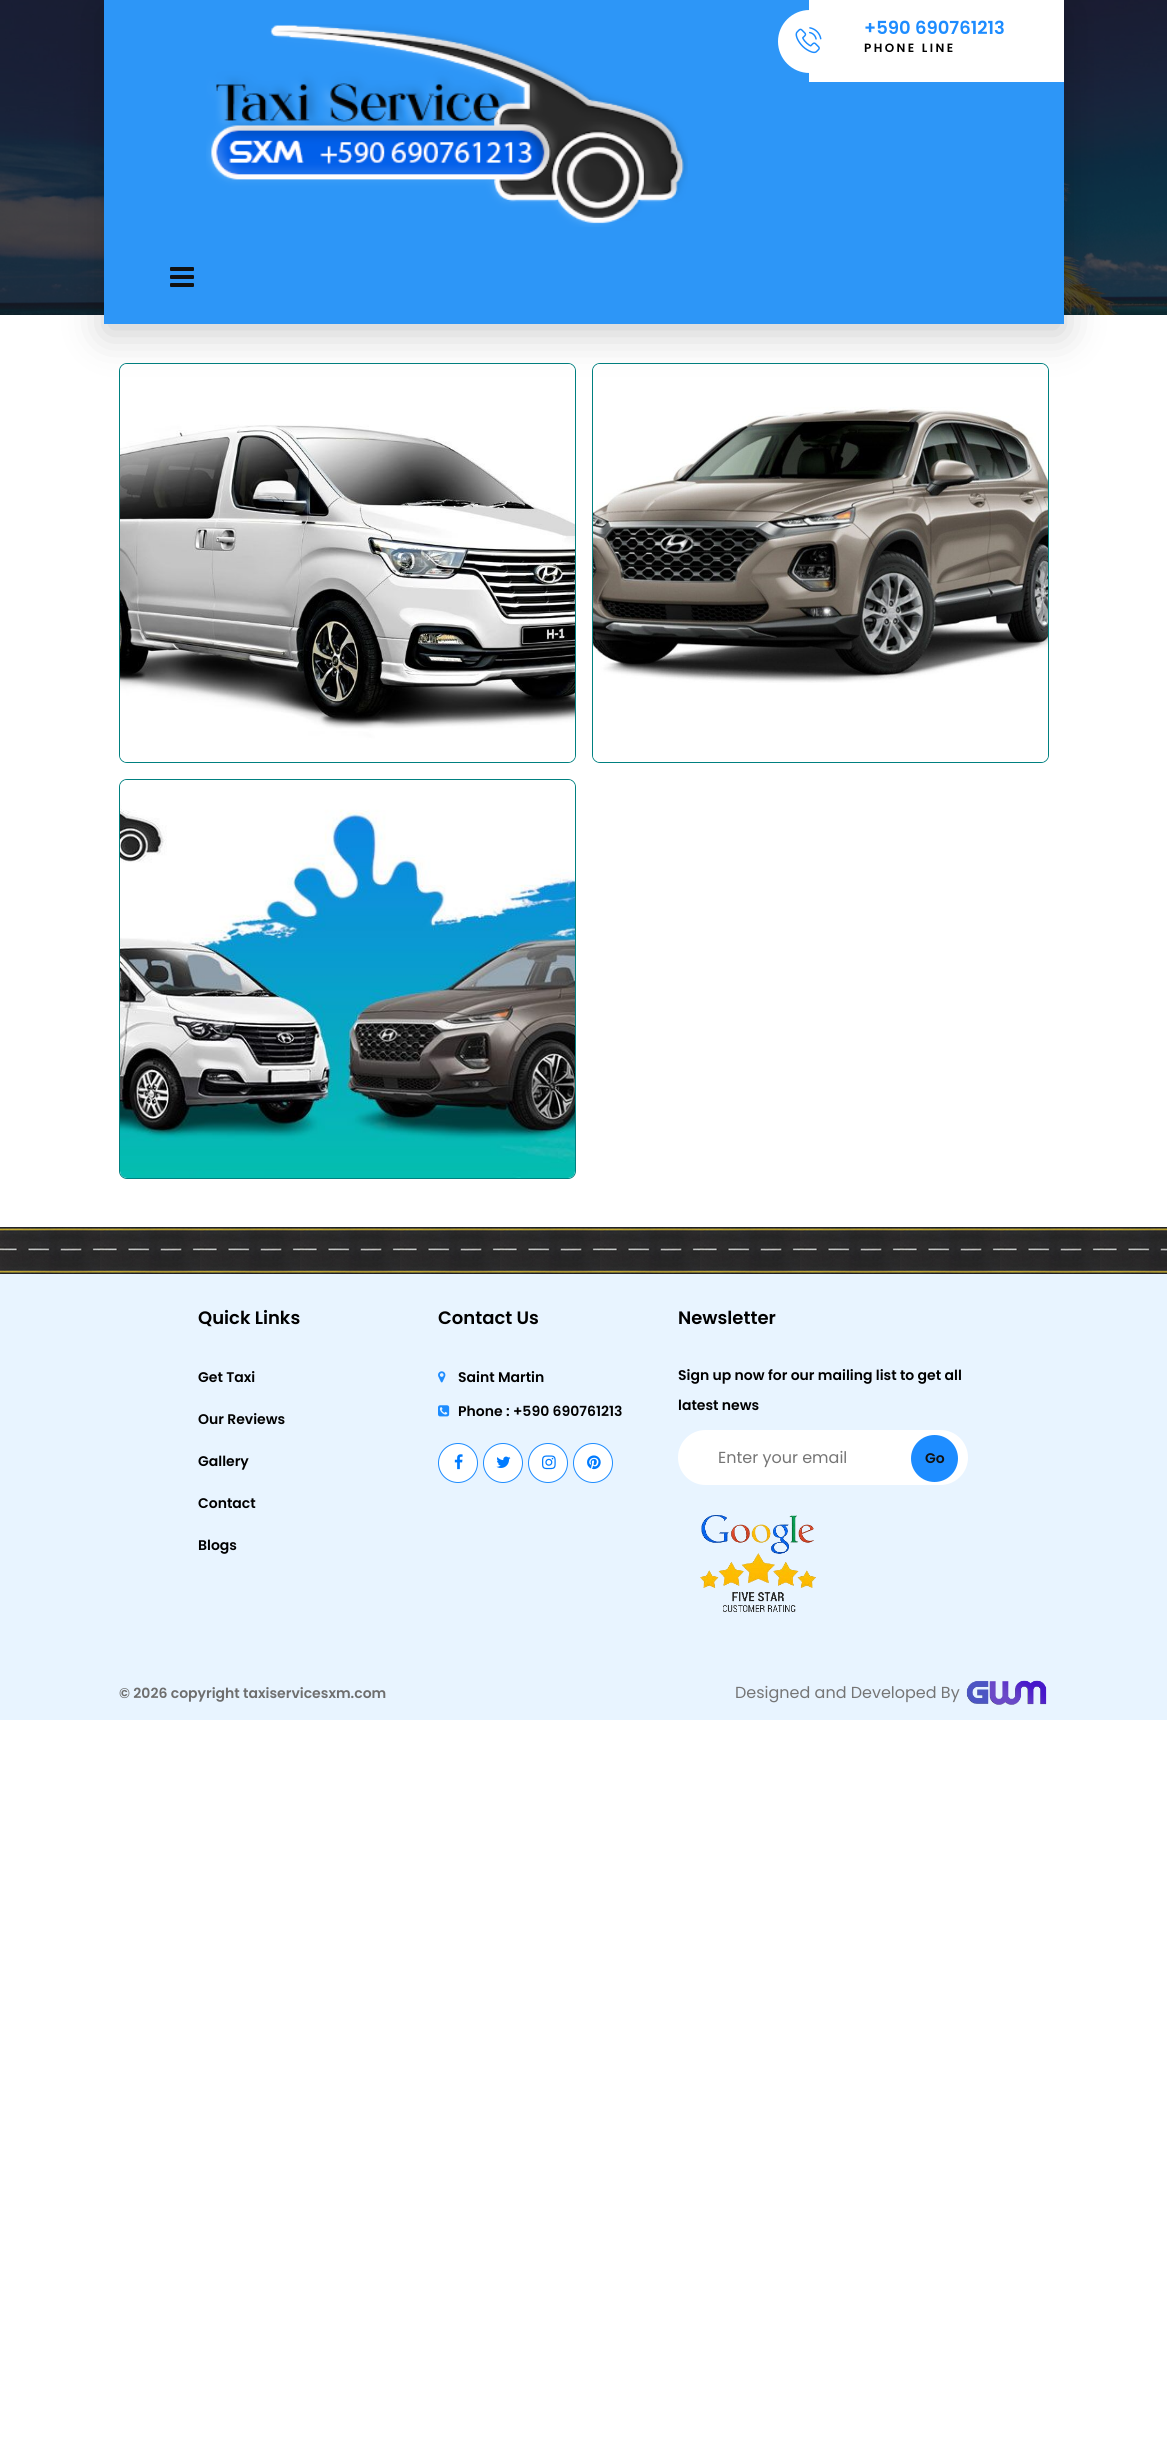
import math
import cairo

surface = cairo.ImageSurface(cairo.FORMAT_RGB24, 1167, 2443)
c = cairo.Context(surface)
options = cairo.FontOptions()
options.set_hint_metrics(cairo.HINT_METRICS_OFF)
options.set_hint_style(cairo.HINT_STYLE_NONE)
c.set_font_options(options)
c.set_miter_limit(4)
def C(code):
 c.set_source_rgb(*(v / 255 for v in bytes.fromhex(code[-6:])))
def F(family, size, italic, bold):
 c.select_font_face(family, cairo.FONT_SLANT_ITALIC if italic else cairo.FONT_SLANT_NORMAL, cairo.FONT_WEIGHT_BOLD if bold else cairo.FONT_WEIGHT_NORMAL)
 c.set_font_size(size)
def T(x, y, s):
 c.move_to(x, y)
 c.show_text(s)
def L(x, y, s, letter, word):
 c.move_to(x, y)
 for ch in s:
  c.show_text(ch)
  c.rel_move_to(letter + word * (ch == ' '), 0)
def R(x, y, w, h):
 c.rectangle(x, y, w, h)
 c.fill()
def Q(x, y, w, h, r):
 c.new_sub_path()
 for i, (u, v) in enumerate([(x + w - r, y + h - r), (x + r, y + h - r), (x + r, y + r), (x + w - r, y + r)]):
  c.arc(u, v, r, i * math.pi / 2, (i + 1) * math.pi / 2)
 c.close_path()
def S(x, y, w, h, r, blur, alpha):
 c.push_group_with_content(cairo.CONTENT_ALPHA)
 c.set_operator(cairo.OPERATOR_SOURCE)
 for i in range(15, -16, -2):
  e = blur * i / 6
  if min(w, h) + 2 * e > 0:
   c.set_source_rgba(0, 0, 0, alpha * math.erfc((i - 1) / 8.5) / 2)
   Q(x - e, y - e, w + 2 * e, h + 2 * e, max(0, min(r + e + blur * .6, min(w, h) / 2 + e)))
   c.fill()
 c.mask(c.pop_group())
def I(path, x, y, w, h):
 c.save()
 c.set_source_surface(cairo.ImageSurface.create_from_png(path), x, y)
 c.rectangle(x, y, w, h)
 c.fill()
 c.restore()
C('ffffff')
c.paint()
I('1.png',0,0,1167,315)
Q(119.5,363.5,456,399,7.5)
C('008080')
c.set_line_width(1)
c.stroke()
I('5.png',120,364,455,398)
Q(592.5,363.5,456,399,7.5)
c.stroke()
I('6.png',593,364,455,398)
C('000000')
S(104,10,960,324,0,20,.2)
C('2d96f7')
R(104,0,960,324)
I('2.png',206,24,482,203)
I('3.png',170,267,24,20)
C('ffffff')
R(809,0,255,82)
c.arc(809.5,41.5,31.5,0,2 * math.pi)
c.fill()
I('4.png',795,27,27,27)
F('Poppins SemiBold',18,0,0)
C('1d8cff')
T(864,34,'+590 690761213')
F('Poppins SemiBold',12,0,0)
C('000000')
L(864,52,'PHONE LINE',2.4,0)
Q(119.5,779.5,456,399,7.5)
C('008080')
c.stroke()
I('7.png',120,780,455,398)
C('e8f4ff')
R(0,1274,1167,446)
I('8.png',0,1227,1167,47)
F('Poppins SemiBold',18,0,0)
C('000000')
T(198,1324,'Quick Links')
F('Poppins SemiBold',14,0,0)
T(198,1382,'Get Taxi')
T(198,1424,'Our Reviews')
T(198,1466,'Gallery')
T(198,1508,'Contact')
T(198,1550,'Blogs')
F('Poppins SemiBold',18,0,0)
T(438,1324,'Contact Us')
I('9.png',438,1371,8,12)
F('Poppins SemiBold',14,0,0)
T(458,1382,'Saint Martin')
I('10.png',438,1405,12,12)
T(458,1416,'Phone : +590 690761213')
C('ffffff')
c.new_path()
c.arc(458,1463,19.5,0,2 * math.pi)
c.fill_preserve()
C('1d8cff')
c.stroke()
I('11.png',454,1454,9,16)
C('ffffff')
c.arc(503,1463,19.5,0,2 * math.pi)
c.fill_preserve()
C('1d8cff')
c.stroke()
I('12.png',496,1456,15,12)
C('ffffff')
c.arc(548,1463,19.5,0,2 * math.pi)
c.fill_preserve()
C('1d8cff')
c.stroke()
I('13.png',542,1455,14,15)
C('ffffff')
c.arc(593,1463,19.5,0,2 * math.pi)
c.fill_preserve()
C('1d8cff')
c.stroke()
I('14.png',587,1455,14,15)
F('Poppins SemiBold',18,0,0)
C('000000')
T(678,1324,'Newsletter')
F('Poppins SemiBold',14,0,0)
T(678,1380,'Sign up now for our mailing list to get all')
T(678,1410,'latest news')
C('ffffff')
Q(678,1430,290,55,27.5)
c.fill()
F('Poppins',16,0,0)
C('757575')
T(718,1463,'Enter your email')
C('1d8cff')
c.new_path()
c.arc(934.5,1458.5,23.5,0,2 * math.pi)
c.fill()
F('Poppins SemiBold',14,0,0)
C('111111')
T(925,1463,'Go')
I('15.png',700,1515,116,97)
C('6e6e6e')
T(119,1698,'© 2026 copyright taxiservicesxm.com')
F('Poppins',16,0,0)
C('757575')
T(735,1698,'Designed and Developed By')
I('16.png',966,1680,81,25)
surface.write_to_png('o.png')
